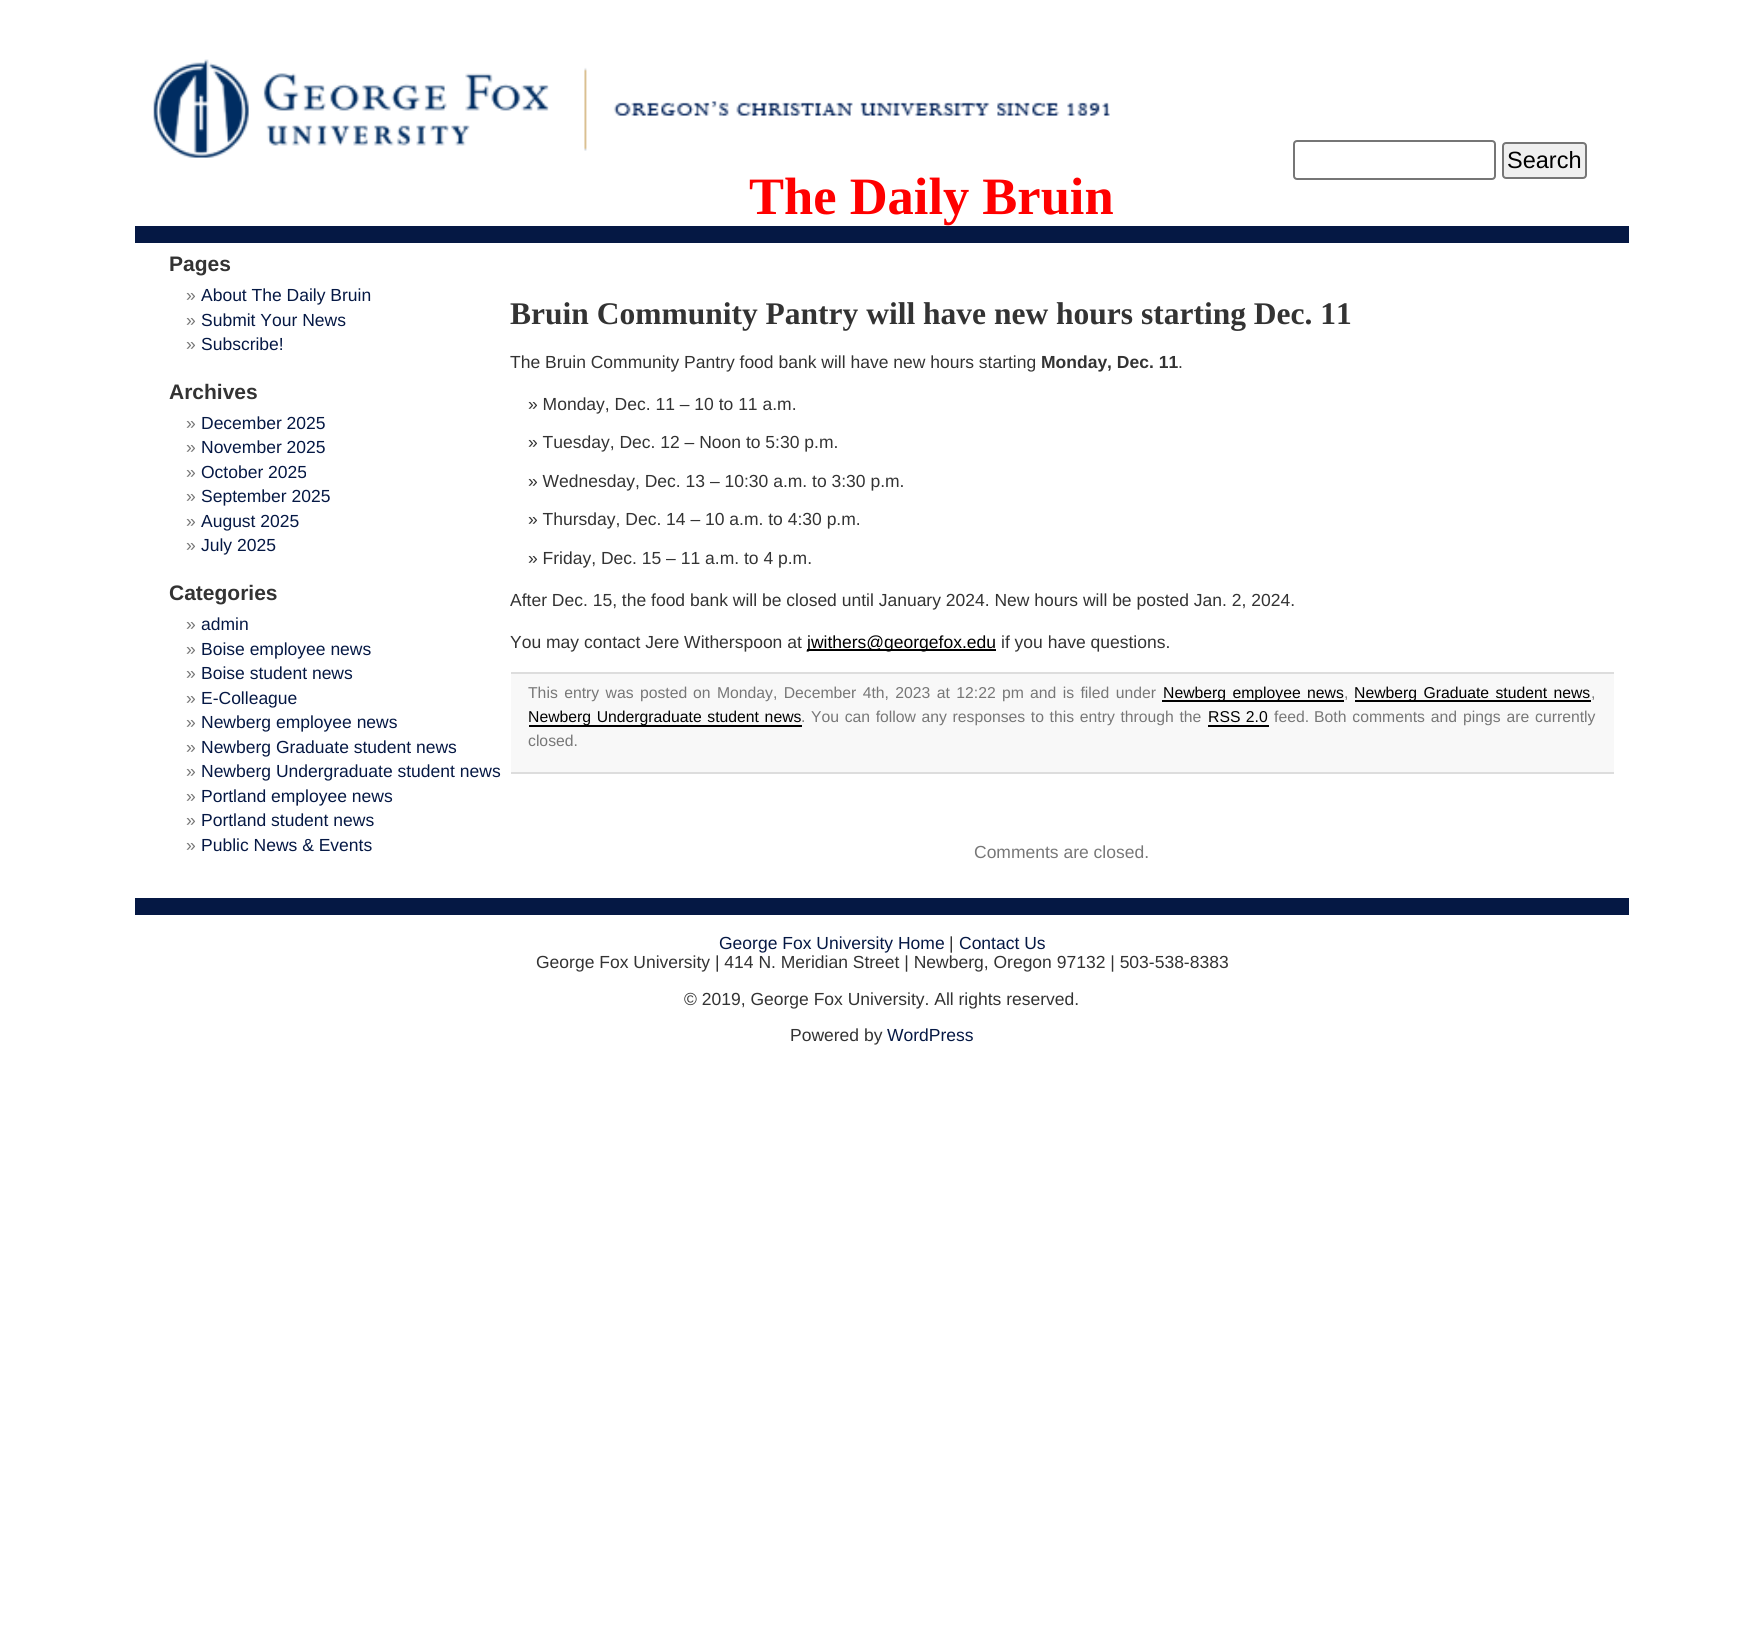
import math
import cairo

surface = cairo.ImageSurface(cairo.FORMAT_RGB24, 1763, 1637)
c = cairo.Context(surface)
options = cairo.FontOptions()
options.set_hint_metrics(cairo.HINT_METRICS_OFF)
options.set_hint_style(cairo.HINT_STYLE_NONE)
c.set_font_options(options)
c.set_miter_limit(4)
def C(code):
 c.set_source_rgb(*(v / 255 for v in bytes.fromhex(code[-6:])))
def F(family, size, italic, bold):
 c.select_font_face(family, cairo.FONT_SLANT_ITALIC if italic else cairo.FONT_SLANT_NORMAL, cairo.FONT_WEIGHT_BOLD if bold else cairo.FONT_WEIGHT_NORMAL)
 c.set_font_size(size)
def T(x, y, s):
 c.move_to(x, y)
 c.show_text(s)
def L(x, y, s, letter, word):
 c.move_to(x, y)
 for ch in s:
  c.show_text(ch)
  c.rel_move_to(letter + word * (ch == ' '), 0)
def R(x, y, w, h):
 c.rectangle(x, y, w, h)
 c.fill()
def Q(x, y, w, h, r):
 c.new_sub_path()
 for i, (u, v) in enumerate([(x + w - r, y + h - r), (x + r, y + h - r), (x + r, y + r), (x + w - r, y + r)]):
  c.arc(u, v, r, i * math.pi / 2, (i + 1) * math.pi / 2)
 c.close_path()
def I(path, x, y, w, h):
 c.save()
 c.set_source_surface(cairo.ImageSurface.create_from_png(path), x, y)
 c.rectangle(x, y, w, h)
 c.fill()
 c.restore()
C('ffffff')
c.paint()
Q(1294,141,201,38,3)
C('767676')
c.stroke()
C('efefef')
Q(1503,143,83,35,3)
c.fill_preserve()
C('767676')
c.stroke()
F('Liberation Sans',23.5,0,0)
C('000000')
T(1507,168,'Search')
I('1.png',153,59,957,99)
F('Liberation Serif',52.5,0,1)
C('ff0000')
T(749,214,'The Daily Bruin')
C('051844')
R(135,226,1494,17)
F('Liberation Sans',21,0,1)
C('333333')
T(169,271,'Pages')
F('Liberation Sans',17.5,0,0)
C('777777')
T(186,301,'»')
C('051844')
T(201,301,'About The Daily Bruin')
C('777777')
T(186,326,'»')
C('051844')
T(201,326,'Submit Your News')
C('777777')
T(186,350,'»')
C('051844')
T(201,350,'Subscribe!')
F('Liberation Sans',21,0,1)
C('333333')
T(169,399,'Archives')
F('Liberation Sans',17.5,0,0)
C('777777')
T(186,429,'»')
C('051844')
T(201,429,'December 2025')
C('777777')
T(186,453,'»')
C('051844')
T(201,453,'November 2025')
C('777777')
T(186,478,'»')
C('051844')
T(201,478,'October 2025')
C('777777')
T(186,502,'»')
C('051844')
T(201,502,'September 2025')
C('777777')
T(186,527,'»')
C('051844')
T(201,527,'August 2025')
C('777777')
T(186,551,'»')
C('051844')
T(201,551,'July 2025')
F('Liberation Sans',21,0,1)
C('333333')
T(169,600,'Categories')
F('Liberation Sans',17.5,0,0)
C('777777')
T(186,630,'»')
C('051844')
T(201,630,'admin')
C('777777')
T(186,655,'»')
C('051844')
T(201,655,'Boise employee news')
C('777777')
T(186,679,'»')
C('051844')
T(201,679,'Boise student news')
C('777777')
T(186,704,'»')
C('051844')
T(201,704,'E-Colleague')
C('777777')
T(186,728,'»')
C('051844')
T(201,728,'Newberg employee news')
C('777777')
T(186,753,'»')
C('051844')
T(201,753,'Newberg Graduate student news')
C('777777')
T(186,777,'»')
C('051844')
T(201,777,'Newberg Undergraduate student news')
C('777777')
T(186,802,'»')
C('051844')
T(201,802,'Portland employee news')
C('777777')
T(186,826,'»')
C('051844')
T(201,826,'Portland student news')
C('777777')
T(186,851,'»')
C('051844')
T(201,851,'Public News & Events')
F('Liberation Serif',31.5,0,1)
C('333333')
T(510,324,'Bruin Community Pantry will have new hours starting Dec. 11')
F('Liberation Sans',17.5,0,0)
T(510,368,'The Bruin Community Pantry food bank will have new hours starting')
F('Liberation Sans',17.5,0,1)
T(1041,368,'Monday, Dec. 11')
F('Liberation Sans',17.5,0,0)
T(1178,368,'.')
T(528,410,'» Monday, Dec. 11 – 10 to 11 a.m.')
T(528,448,'» Tuesday, Dec. 12 – Noon to 5:30 p.m.')
T(528,487,'» Wednesday, Dec. 13 – 10:30 a.m. to 3:30 p.m.')
T(528,525,'» Thursday, Dec. 14 – 10 a.m. to 4:30 p.m.')
T(528,564,'» Friday, Dec. 15 – 11 a.m. to 4 p.m.')
T(510,606,'After Dec. 15, the food bank will be closed until January 2024. New hours will be posted Jan. 2, 2024.')
T(510,648,'You may contact Jere Witherspoon at')
C('000000')
R(807,649,189,2)
T(807,648,'jwithers@georgefox.edu')
C('333333')
T(1001,648,'if you have questions.')
C('f8f8f8')
R(511,674,1103,98)
C('dddddd')
R(511,672,1103,2)
R(511,772,1103,2)
F('Liberation Sans',15.75,0,0)
C('777777')
L(528,698,'This entry was posted',0,2)
L(693,698,'on Monday, December 4th, 2023 at 12:22 pm',0,2)
L(1030,698,'and is filed under',0,2)
C('000000')
R(1162,700,182,2)
L(1163,698,'Newberg employee news',0,2)
C('777777')
T(1344,698,',')
C('000000')
R(1355,700,236,2)
L(1354,698,'Newberg Graduate student news',0,2)
C('777777')
T(1591,698,',')
C('000000')
R(529,725,273,2)
L(528,722,'Newberg Undergraduate student news',0,1.25)
C('777777')
T(801,722,'.')
L(811,722,'You can follow any responses to this entry through the',0,1.25)
C('000000')
L(1208,722,'RSS 2.0',0,1)
R(1208,725,61,2)
C('777777')
T(1274,722,'feed.')
L(1314,722,'Both comments and pings are currently',0,1.5)
T(528,746,'closed.')
F('Liberation Sans',17.5,0,0)
T(974,858,'Comments are closed.')
C('051844')
R(135,898,1494,17)
T(719,949,'George Fox University Home')
C('333333')
T(949,949,'|')
C('051844')
T(959,949,'Contact Us')
C('333333')
T(536,968,'George Fox University | 414 N. Meridian Street | Newberg, Oregon 97132 | 503-538-8383')
T(684,1005,'© 2019, George Fox University. All rights reserved.')
T(790,1041,'Powered by')
C('051844')
T(887,1041,'WordPress')
surface.write_to_png('o.png')
